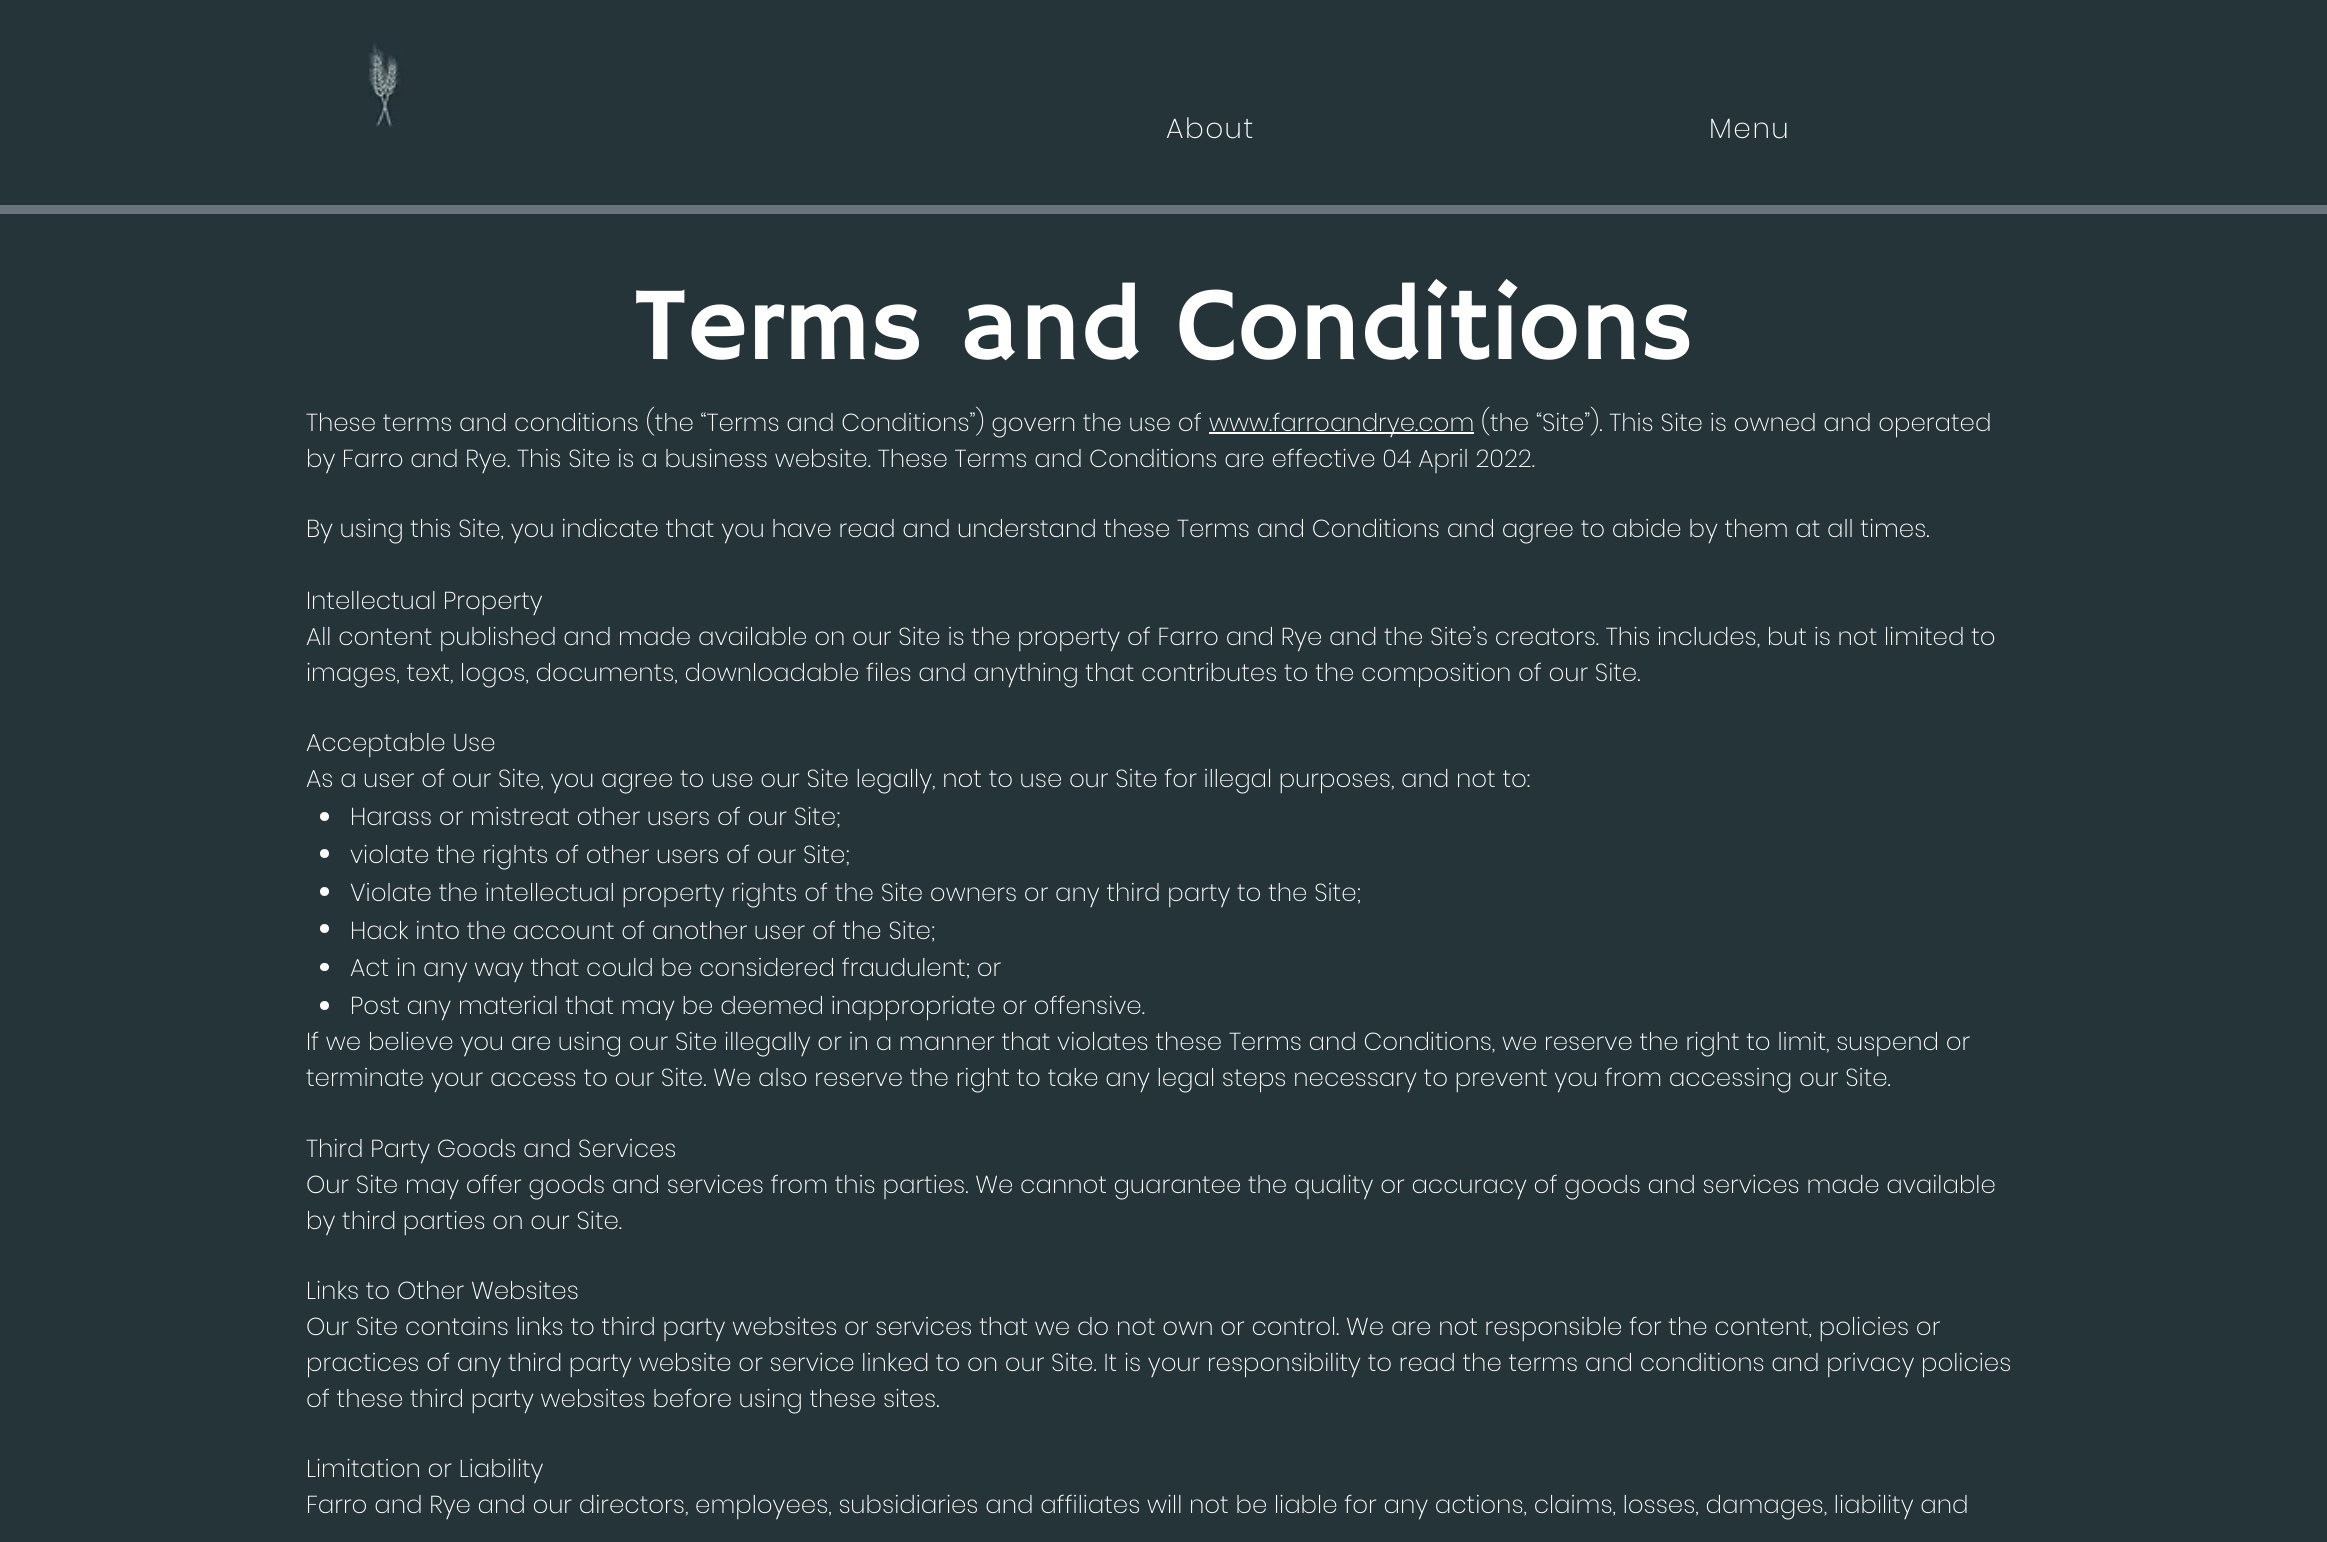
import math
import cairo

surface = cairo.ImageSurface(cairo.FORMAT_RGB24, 2327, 1542)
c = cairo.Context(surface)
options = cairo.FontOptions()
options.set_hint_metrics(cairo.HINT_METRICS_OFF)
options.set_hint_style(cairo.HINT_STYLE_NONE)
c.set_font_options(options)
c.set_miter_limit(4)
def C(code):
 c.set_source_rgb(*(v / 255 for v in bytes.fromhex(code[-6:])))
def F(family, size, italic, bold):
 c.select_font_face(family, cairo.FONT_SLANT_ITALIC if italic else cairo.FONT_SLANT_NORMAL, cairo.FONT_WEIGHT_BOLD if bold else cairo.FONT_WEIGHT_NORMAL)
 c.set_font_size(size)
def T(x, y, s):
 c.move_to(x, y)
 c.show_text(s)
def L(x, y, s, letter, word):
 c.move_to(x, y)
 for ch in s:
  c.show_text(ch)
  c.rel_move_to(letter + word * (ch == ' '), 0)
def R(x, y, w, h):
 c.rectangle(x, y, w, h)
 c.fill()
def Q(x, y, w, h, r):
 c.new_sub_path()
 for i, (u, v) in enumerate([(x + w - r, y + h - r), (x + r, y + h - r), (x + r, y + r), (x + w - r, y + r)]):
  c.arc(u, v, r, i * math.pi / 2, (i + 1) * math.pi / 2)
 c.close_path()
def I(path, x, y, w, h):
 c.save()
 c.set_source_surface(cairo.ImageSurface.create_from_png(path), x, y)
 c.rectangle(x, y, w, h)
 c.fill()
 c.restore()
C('253439')
c.paint()
I('1.png',368,42,36,85)
F('Poppins ExtraLight',28,0,0)
C('ffffff')
L(1166,138,'About',1.5,0)
L(1709,138,'Menu',1.5,0)
C('6a747d')
R(0,205,2327,9)
F('Hammersmith One',105,0,0)
C('ffffff')
T(634,359,'Terms and Conditions')
F('Poppins ExtraLight',24.5,0,0)
T(306,431,'These terms and conditions (the “Terms and Conditions”) govern the use of')
R(1209,432,265,2)
T(1209,431,'www.farroandrye.com (the “Site”). This Site is owned and operated')
T(306,467,'by Farro and Rye. This Site is a business website. These Terms and Conditions are effective 04 April 2022.')
T(306,537,'By using this Site, you indicate that you have read and understand these Terms and Conditions and agree to abide by them at all times.')
T(306,609,'Intellectual Property')
T(306,645,'All content published and made available on our Site is the property of Farro and Rye and the Site’s creators. This includes, but is not limited to')
T(306,681,'images, text, logos, documents, downloadable files and anything that contributes to the composition of our Site.')
T(306,751,'Acceptable Use')
T(306,787,'As a user of our Site, you agree to use our Site legally, not to use our Site for illegal purposes, and not to:')
c.new_path()
c.arc(324.5,816.5,4.5,0,2 * math.pi)
c.fill()
T(350,825,'Harass or mistreat other users of our Site;')
c.new_path()
c.arc(324.5,853.5,4.5,0,2 * math.pi)
c.fill()
T(350,863,'violate the rights of other users of our Site;')
c.new_path()
c.arc(324.5,891.5,4.5,0,2 * math.pi)
c.fill()
T(350,901,'Violate the intellectual property rights of the Site owners or any third party to the Site;')
c.new_path()
c.arc(324.5,928.5,4.5,0,2 * math.pi)
c.fill()
T(350,939,'Hack into the account of another user of the Site;')
Q(320,963,9,8,4)
c.fill()
T(350,976,'Act in any way that could be considered fraudulent; or')
c.new_path()
c.arc(324.5,1005.5,4.5,0,2 * math.pi)
c.fill()
T(350,1014,'Post any material that may be deemed inappropriate or offensive.')
T(306,1050,'If we believe you are using our Site illegally or in a manner that violates these Terms and Conditions, we reserve the right to limit, suspend or')
T(306,1086,'terminate your access to our Site. We also reserve the right to take any legal steps necessary to prevent you from accessing our Site.')
T(306,1157,'Third Party Goods and Services')
T(306,1193,'Our Site may offer goods and services from this parties. We cannot guarantee the quality or accuracy of goods and services made available')
T(306,1229,'by third parties on our Site.')
T(306,1299,'Links to Other Websites')
T(306,1335,'Our Site contains links to third party websites or services that we do not own or control. We are not responsible for the content, policies or')
T(306,1371,'practices of any third party website or service linked to on our Site. It is your responsibility to read the terms and conditions and privacy policies')
T(306,1407,'of these third party websites before using these sites.')
T(306,1477,'Limitation or Liability')
T(306,1513,'Farro and Rye and our directors, employees, subsidiaries and affiliates will not be liable for any actions, claims, losses, damages, liability and')
surface.write_to_png('o.png')
